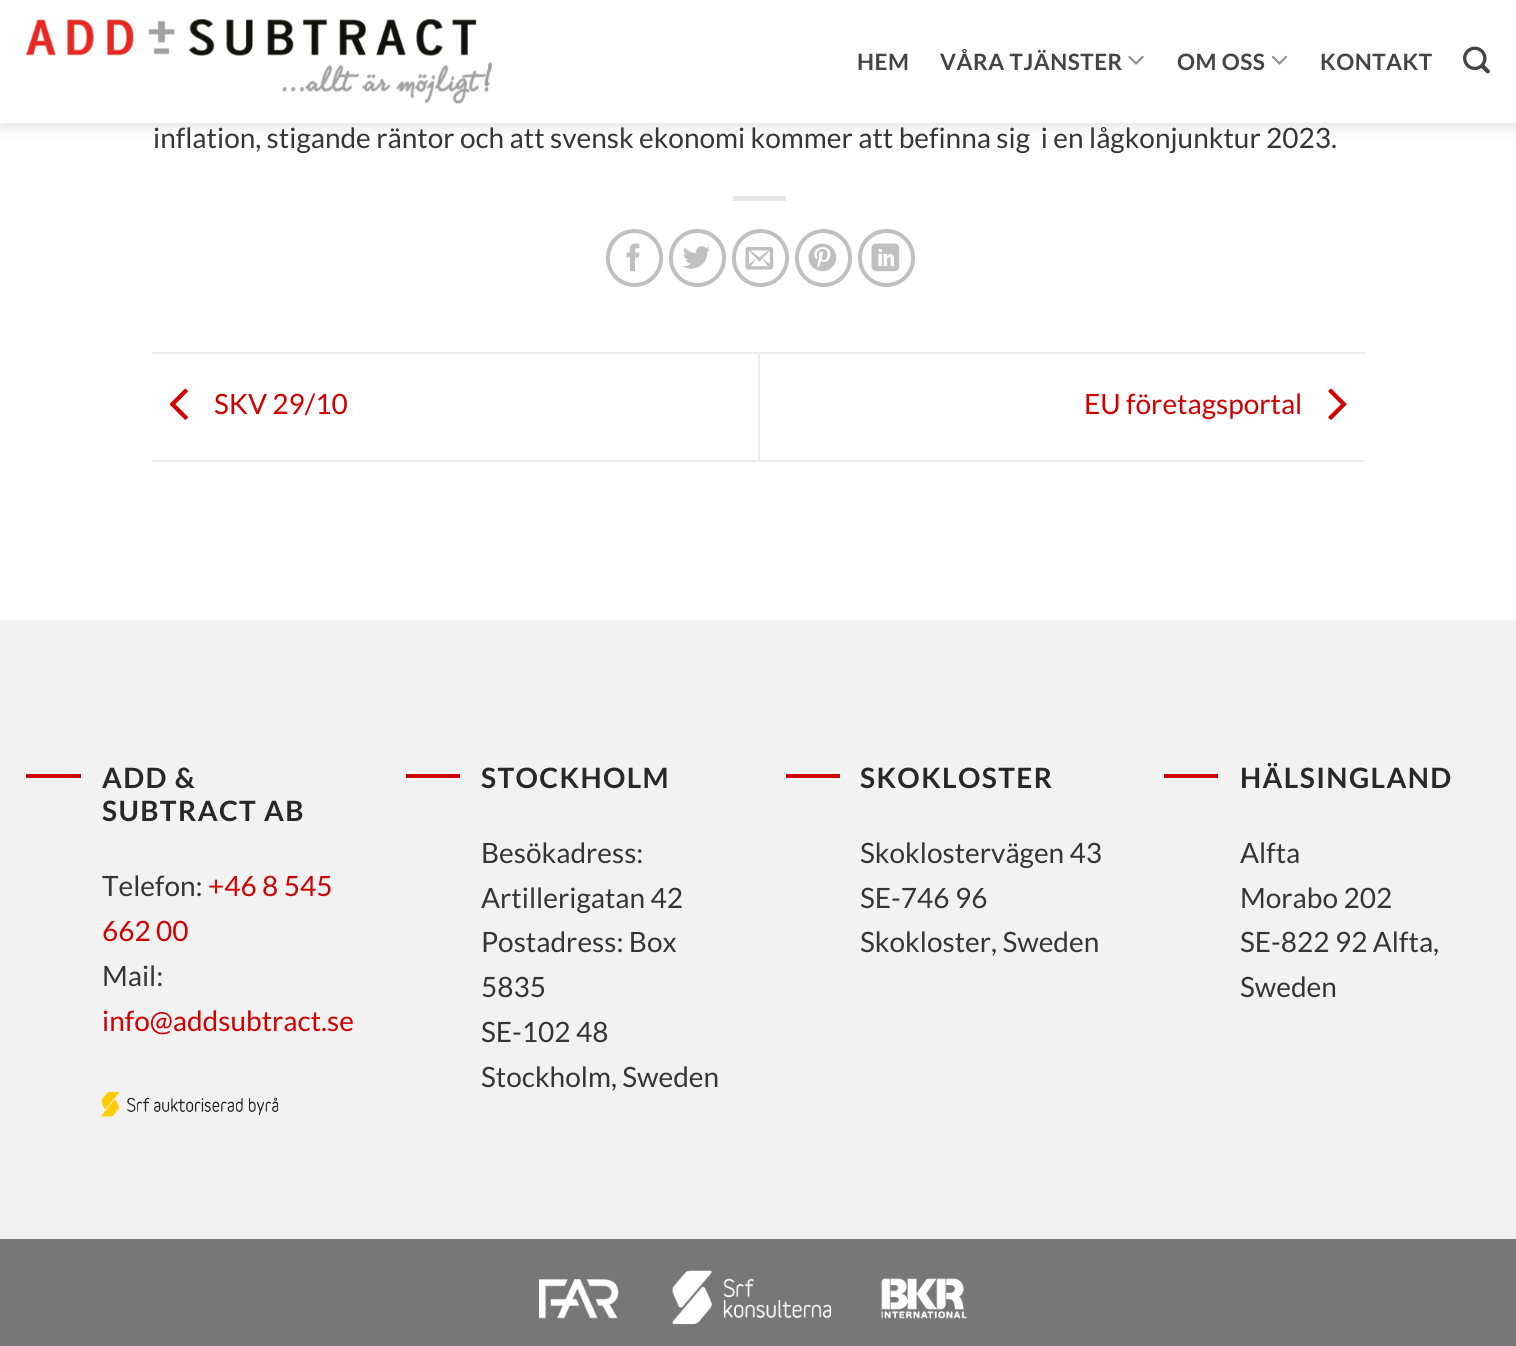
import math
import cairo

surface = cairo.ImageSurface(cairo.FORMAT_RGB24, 1516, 1346)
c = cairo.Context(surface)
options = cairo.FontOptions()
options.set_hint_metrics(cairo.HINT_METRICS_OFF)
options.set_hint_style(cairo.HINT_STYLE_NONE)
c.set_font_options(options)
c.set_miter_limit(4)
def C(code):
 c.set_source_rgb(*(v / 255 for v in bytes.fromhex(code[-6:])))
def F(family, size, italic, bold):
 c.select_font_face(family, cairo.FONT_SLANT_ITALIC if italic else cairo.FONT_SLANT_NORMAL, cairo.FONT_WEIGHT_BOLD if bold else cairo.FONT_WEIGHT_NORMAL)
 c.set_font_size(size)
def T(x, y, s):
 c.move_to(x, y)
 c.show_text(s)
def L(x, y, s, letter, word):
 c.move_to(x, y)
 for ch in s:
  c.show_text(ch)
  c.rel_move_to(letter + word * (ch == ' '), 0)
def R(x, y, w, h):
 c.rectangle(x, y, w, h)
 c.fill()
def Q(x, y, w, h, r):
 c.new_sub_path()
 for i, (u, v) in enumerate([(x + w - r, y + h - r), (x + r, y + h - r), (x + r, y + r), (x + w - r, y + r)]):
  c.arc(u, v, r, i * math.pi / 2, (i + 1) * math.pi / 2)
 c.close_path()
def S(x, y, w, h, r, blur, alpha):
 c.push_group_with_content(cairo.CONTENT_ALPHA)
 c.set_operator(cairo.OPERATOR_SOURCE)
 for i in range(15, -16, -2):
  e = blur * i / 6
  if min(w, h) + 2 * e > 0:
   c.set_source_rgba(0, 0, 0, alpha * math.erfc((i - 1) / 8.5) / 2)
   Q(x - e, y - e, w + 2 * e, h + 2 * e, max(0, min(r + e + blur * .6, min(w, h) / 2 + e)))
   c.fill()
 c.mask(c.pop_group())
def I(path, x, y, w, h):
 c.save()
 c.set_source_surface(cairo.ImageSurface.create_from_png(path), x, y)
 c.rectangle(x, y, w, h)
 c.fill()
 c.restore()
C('ffffff')
c.paint()
c.save()
c.set_fill_rule(cairo.FILL_RULE_EVEN_ODD)
c.new_path()
c.move_to(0,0)
c.line_to(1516,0)
c.line_to(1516,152)
c.line_to(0,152)
c.close_path()
c.move_to(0,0)
c.line_to(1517,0)
c.line_to(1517,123)
c.line_to(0,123)
c.close_path()
c.clip()
C('000000')
S(2,2,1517,122,0,9,.15)
c.restore()
I('1.png',26,19,466,85)
F('Lato',22.5,0,1)
C('444444')
L(857,70,'HEM',.5,0)
L(940,70,'VÅRA TJÄNSTER',.5,0)
I('2.png',1128,55,16,10)
L(1177,70,'OM OSS',.5,0)
I('3.png',1271,55,17,10)
L(1320,70,'KONTAKT',.5,0)
I('4.png',1463,46,27,28)
c.set_source_rgba(1,1,1,0.9)
R(0,122,1516,1)
F('Lato',28,0,0)
C('353535')
T(153,148,'inflation, stigande räntor och att svensk ekonomi kommer att befinna sig  i en lågkonjunktur 2023.')
C('e6e6e6')
R(733,196,53,5)
Q(608,231,53,54,26.5)
C('c0c0c0')
c.set_line_width(4)
c.stroke()
I('5.png',626,243,14,29)
Q(671,231,53,54,26.5)
c.stroke()
I('6.png',683,246,27,23)
Q(734,231,53,54,26.5)
c.stroke()
I('7.png',745,247,29,23)
Q(797,231,53,54,26.5)
c.stroke()
I('8.png',808,243,29,29)
Q(860,231,53,54,26.5)
c.stroke()
I('9.png',871,243,29,29)
C('ececec')
R(152,352,1213,2)
R(152,460,1213,2)
I('10.png',169,388,19,32)
C('d10000')
T(214,414,'SKV 29/10')
C('ececec')
R(758,354,2,106)
C('d10000')
T(1084,414,'EU företagsportal')
I('11.png',1328,388,19,32)
C('f2f2f2')
R(0,620,1516,619)
C('d10000')
R(26,774,55,4)
F('Lato',28,0,1)
C('282828')
L(102,788,'ADD &',1.4,0)
L(102,821,'SUBTRACT AB',1.4,0)
F('Lato',28,0,0)
C('353535')
T(102,896,'Telefon:')
C('d10000')
T(208,896,'+46 8 545')
T(102,941,'662 00')
C('353535')
T(102,986,'Mail:')
C('d10000')
T(102,1031,'info@addsubtract.se')
I('12.png',101,1092,178,25)
R(406,774,54,4)
F('Lato',28,0,1)
C('282828')
L(481,788,'STOCKHOLM',1.4,0)
F('Lato',28,0,0)
C('353535')
T(481,863,'Besökadress:')
T(481,908,'Artillerigatan 42')
T(481,952,'Postadress: Box')
T(481,997,'5835')
T(481,1042,'SE-102 48')
T(481,1087,'Stockholm, Sweden')
C('d10000')
R(786,774,54,4)
F('Lato',28,0,1)
C('282828')
L(860,788,'SKOKLOSTER',1.4,0)
F('Lato',28,0,0)
C('353535')
T(860,863,'Skoklostervägen 43')
T(860,908,'SE-746 96')
T(860,952,'Skokloster, Sweden')
C('d10000')
R(1164,774,54,4)
F('Lato',28,0,1)
C('282828')
L(1240,788,'HÄLSINGLAND',1.4,0)
F('Lato',28,0,0)
C('353535')
T(1240,863,'Alfta')
T(1240,908,'Morabo 202')
T(1240,952,'SE-822 92 Alfta,')
T(1240,997,'Sweden')
C('777777')
R(0,1239,1516,107)
I('13.png',539,1270,428,55)
surface.write_to_png('o.png')
